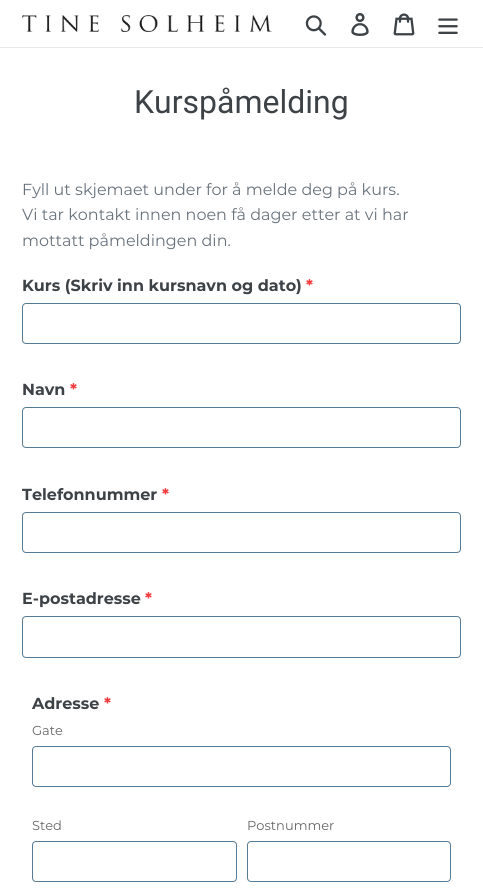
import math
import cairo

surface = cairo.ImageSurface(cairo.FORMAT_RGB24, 483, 891)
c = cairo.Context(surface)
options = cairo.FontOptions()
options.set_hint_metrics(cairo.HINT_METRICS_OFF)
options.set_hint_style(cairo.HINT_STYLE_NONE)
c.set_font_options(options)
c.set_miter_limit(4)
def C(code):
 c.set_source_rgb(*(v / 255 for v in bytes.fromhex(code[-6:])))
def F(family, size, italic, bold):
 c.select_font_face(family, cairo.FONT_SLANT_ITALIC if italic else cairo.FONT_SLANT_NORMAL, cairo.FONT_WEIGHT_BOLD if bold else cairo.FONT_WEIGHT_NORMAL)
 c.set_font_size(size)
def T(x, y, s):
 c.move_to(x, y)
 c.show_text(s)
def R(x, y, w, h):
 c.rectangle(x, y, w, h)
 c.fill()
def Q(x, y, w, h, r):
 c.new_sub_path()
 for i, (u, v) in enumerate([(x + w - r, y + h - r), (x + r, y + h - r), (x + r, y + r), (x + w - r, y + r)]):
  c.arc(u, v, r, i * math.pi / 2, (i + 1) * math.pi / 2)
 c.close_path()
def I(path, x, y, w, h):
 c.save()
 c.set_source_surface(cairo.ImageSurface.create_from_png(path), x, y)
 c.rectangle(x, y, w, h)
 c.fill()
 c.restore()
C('ffffff')
c.paint()
C('e8e9eb')
R(0,47,483,1)
I('1.png',22,15,250,17)
I('2.png',305,15,22,21)
I('3.png',351,13,18,23)
I('4.png',393,13,22,23)
I('5.png',438,18,20,16)
F('Roboto',32,0,0)
C('3d4246')
T(134,113,'Kurspåmelding')
F('Montserrat',16,0,0)
C('69727b')
T(22,195,'Fyll ut skjemaet under for å melde deg på kurs.')
T(22,220,'Vi tar kontakt innen noen få dager etter at vi har')
T(22,246,'mottatt påmeldingen din.')
F('Montserrat',16,0,1)
C('3d4246')
T(22,291,'Kurs (Skriv inn kursnavn og dato)')
C('f23a3c')
T(306,291,'*')
Q(22.5,303.5,438,40,3.5)
C('557b97')
c.set_line_width(1)
c.stroke()
C('3d4246')
T(22,395,'Navn')
C('f23a3c')
T(70,395,'*')
Q(22.5,407.5,438,40,3.5)
C('557b97')
c.stroke()
C('3d4246')
T(22,500,'Telefonnummer')
C('f23a3c')
T(162,500,'*')
Q(22.5,512.5,438,40,3.5)
C('557b97')
c.stroke()
C('3d4246')
T(22,604,'E-postadresse')
C('f23a3c')
T(145,604,'*')
Q(22.5,616.5,438,41,3.5)
C('557b97')
c.stroke()
C('3d4246')
T(32,709,'Adresse')
C('f23a3c')
T(104,709,'*')
F('Montserrat',13,0,0)
C('666666')
T(32,735,'Gate')
Q(32.5,746.5,418,40,3.5)
C('557b97')
c.stroke()
C('666666')
T(32,830,'Sted')
Q(32.5,841.5,204,40,3.5)
C('557b97')
c.stroke()
C('666666')
T(247,830,'Postnummer')
Q(247.5,841.5,203,40,3.5)
C('557b97')
c.stroke()
surface.write_to_png('o.png')
